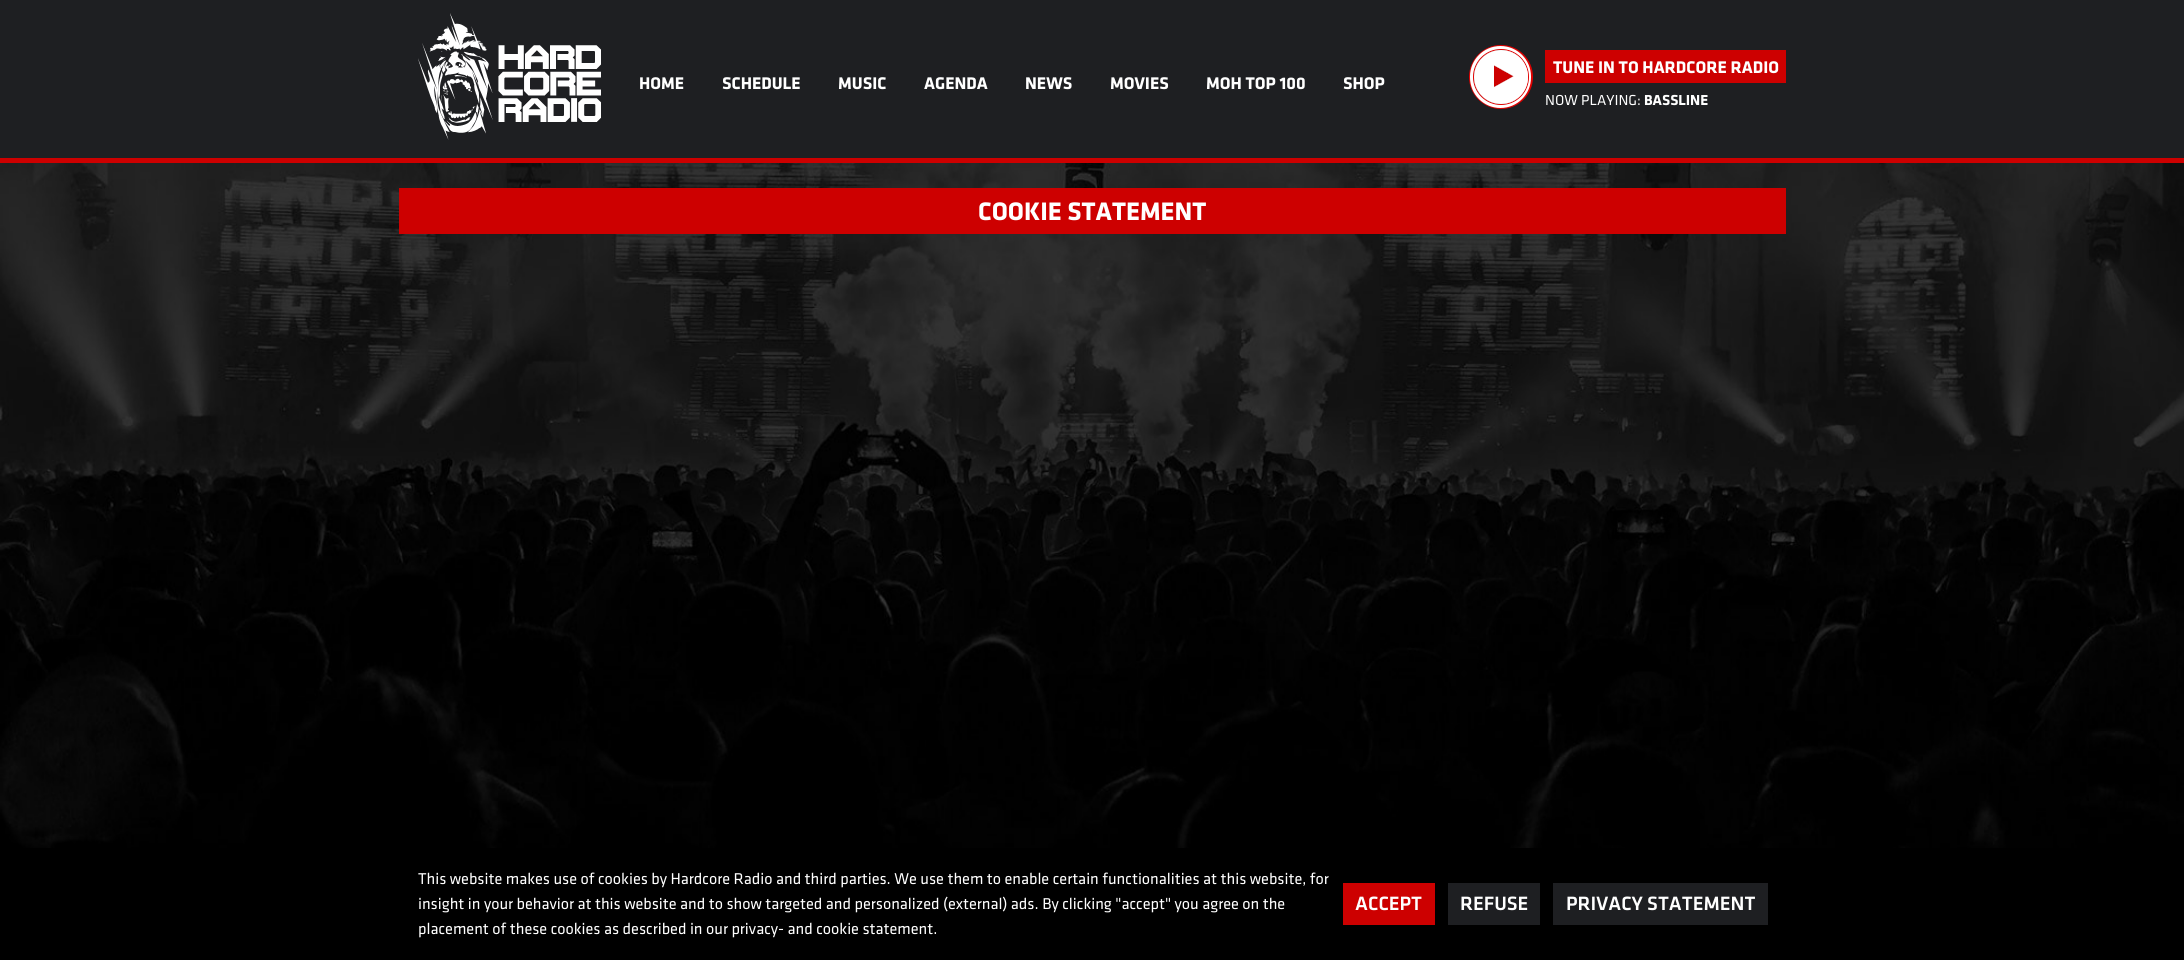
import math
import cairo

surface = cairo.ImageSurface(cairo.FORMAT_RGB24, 2184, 960)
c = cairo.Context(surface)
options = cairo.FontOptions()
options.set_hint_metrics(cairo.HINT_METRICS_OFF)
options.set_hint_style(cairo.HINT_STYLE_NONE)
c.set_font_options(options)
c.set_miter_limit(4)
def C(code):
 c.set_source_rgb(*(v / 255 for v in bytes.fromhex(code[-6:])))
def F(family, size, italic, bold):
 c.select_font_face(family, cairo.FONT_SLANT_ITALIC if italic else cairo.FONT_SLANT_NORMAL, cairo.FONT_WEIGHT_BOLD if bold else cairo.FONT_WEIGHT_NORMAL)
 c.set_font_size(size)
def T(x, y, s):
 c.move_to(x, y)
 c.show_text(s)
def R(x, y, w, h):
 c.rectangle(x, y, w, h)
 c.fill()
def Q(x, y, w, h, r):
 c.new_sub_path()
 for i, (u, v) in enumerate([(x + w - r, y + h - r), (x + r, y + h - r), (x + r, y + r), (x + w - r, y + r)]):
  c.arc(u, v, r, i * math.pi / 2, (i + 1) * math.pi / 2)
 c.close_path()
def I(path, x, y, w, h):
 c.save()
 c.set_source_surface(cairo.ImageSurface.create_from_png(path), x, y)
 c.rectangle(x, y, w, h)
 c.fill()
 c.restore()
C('ffffff')
c.paint()
I('1.png',0,163,2184,685)
C('1e1f22')
R(0,0,2184,158)
C('cd0000')
R(0,158,2184,5)
I('2.png',418,13,183,127)
F('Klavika',17.5,0,1)
C('ffffff')
T(639,89,'HOME')
T(722,89,'SCHEDULE')
T(838,89,'MUSIC')
T(924,89,'AGENDA')
T(1025,89,'NEWS')
T(1110,89,'MOVIES')
T(1206,89,'MOH TOP 100')
T(1343,89,'SHOP')
c.new_path()
c.arc(1501,77,29.5,0,2 * math.pi)
C('e00000')
c.set_line_width(5)
c.stroke()
Q(1472,48,57,58,28.5)
C('ffffff')
c.set_line_width(4)
c.stroke()
c.arc(1501,77,27.5,0,2 * math.pi)
C('e00000')
c.set_line_width(1)
c.stroke()
C('ffffff')
c.arc(1501,77,27,0,2 * math.pi)
c.fill()
I('3.png',1494,65,20,23)
C('cd0000')
R(1545,50,241,33)
C('ffffff')
T(1553,73,'TUNE IN TO HARDCORE RADIO')
F('Klavika',15,0,0)
T(1545,105,'NOW PLAYING:')
F('Klavika',15,0,1)
T(1644,105,'BASSLINE')
C('cd0000')
R(399,188,1387,46)
F('Klavika',26.25,0,1)
C('ffffff')
T(978,220,'COOKIE STATEMENT')
C('000000')
R(0,848,2184,112)
F('Klavika',16.25,0,0)
C('ffffff')
T(418,884,'This website makes use of cookies by Hardcore Radio and third parties. We use them to enable certain functionalities at this website, for')
T(418,909,'insight in your behavior at this website and to show targeted and personalized (external) ads. By clicking "accept" you agree on the')
T(418,934,'placement of these cookies as described in our privacy- and cookie statement.')
C('cd0000')
R(1343,883,92,42)
F('Klavika Medium',20,0,0)
C('ffffff')
T(1355,910,'ACCEPT')
C('1e1f22')
R(1448,883,92,42)
C('ffffff')
T(1460,910,'REFUSE')
C('1e1f22')
R(1553,883,215,42)
C('ffffff')
T(1566,910,'PRIVACY STATEMENT')
surface.write_to_png('o.png')
